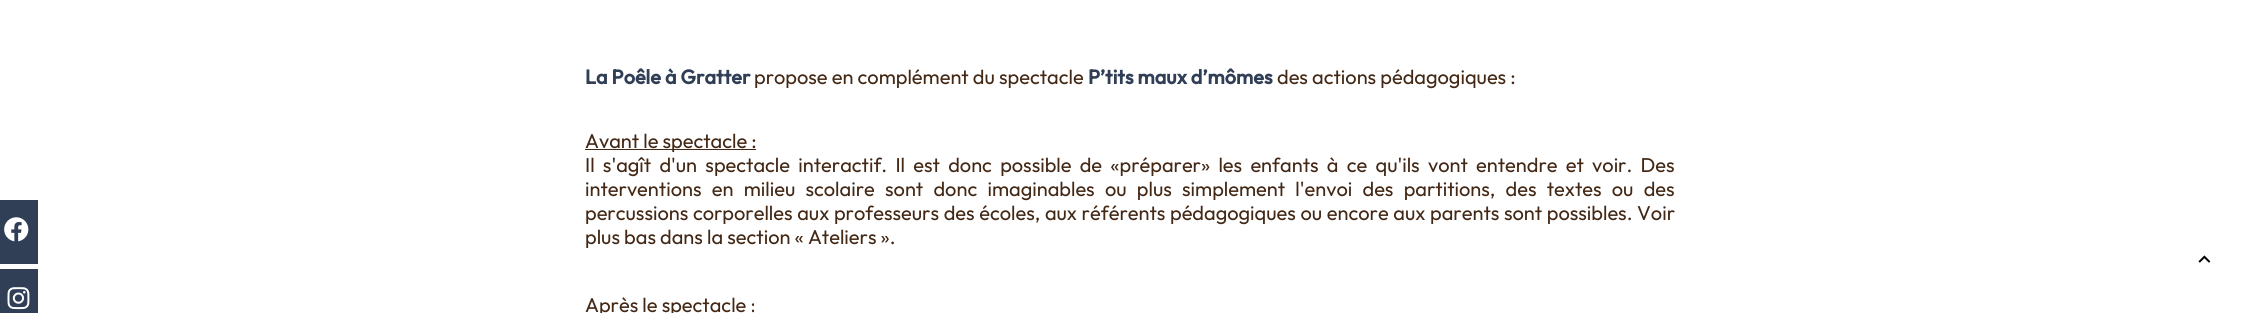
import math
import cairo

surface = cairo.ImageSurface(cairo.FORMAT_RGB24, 2258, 313)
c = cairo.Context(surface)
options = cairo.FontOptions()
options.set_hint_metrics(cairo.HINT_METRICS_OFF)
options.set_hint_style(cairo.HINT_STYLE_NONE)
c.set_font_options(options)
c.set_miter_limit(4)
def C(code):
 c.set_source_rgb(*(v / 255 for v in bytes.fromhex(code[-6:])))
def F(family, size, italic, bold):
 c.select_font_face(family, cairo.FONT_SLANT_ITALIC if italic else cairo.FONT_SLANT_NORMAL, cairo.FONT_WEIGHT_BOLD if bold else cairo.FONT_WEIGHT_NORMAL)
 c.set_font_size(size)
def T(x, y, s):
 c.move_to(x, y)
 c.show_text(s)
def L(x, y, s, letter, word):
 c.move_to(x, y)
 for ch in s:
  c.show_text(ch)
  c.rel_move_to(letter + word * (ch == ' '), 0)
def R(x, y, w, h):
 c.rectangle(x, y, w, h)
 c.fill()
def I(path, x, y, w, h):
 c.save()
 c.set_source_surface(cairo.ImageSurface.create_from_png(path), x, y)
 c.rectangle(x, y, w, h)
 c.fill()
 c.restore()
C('ffffff')
c.paint()
C('303e56')
R(0,200,38,64)
I('1.png',4,217,25,25)
R(0,269,38,44)
I('2.png',7,287,23,23)
F('Outfit',20,0,1)
T(585,84,'La Poêle à Gratter')
F('Outfit',20,0,0)
C('432815')
T(754,84,'propose en complément du spectacle')
F('Outfit',20,0,1)
C('303e56')
T(1088,84,'P’tits maux d’mômes')
F('Outfit',20,0,0)
C('432815')
T(1277,84,'des actions pédagogiques :')
R(585,149,171,1)
T(585,148,'Avant le spectacle :')
L(585,172,'Il s\'agît d\'un spectacle interactif. Il est donc possible de «préparer» les enfants à ce qu\'ils vont entendre et voir. Des',0,4.1)
L(585,196,'interventions en milieu scolaire sont donc imaginables ou plus simplement l\'envoi des partitions, des textes ou des',0,6.1)
L(585,220,'percussions corporelles aux professeurs des écoles, aux référents pédagogiques ou encore aux parents sont possibles. Voir',0,.5)
T(585,244,'plus bas dans la section « Ateliers ».')
T(585,312,'Après le spectacle :')
I('3.png',2198,255,13,8)
surface.write_to_png('o.png')
